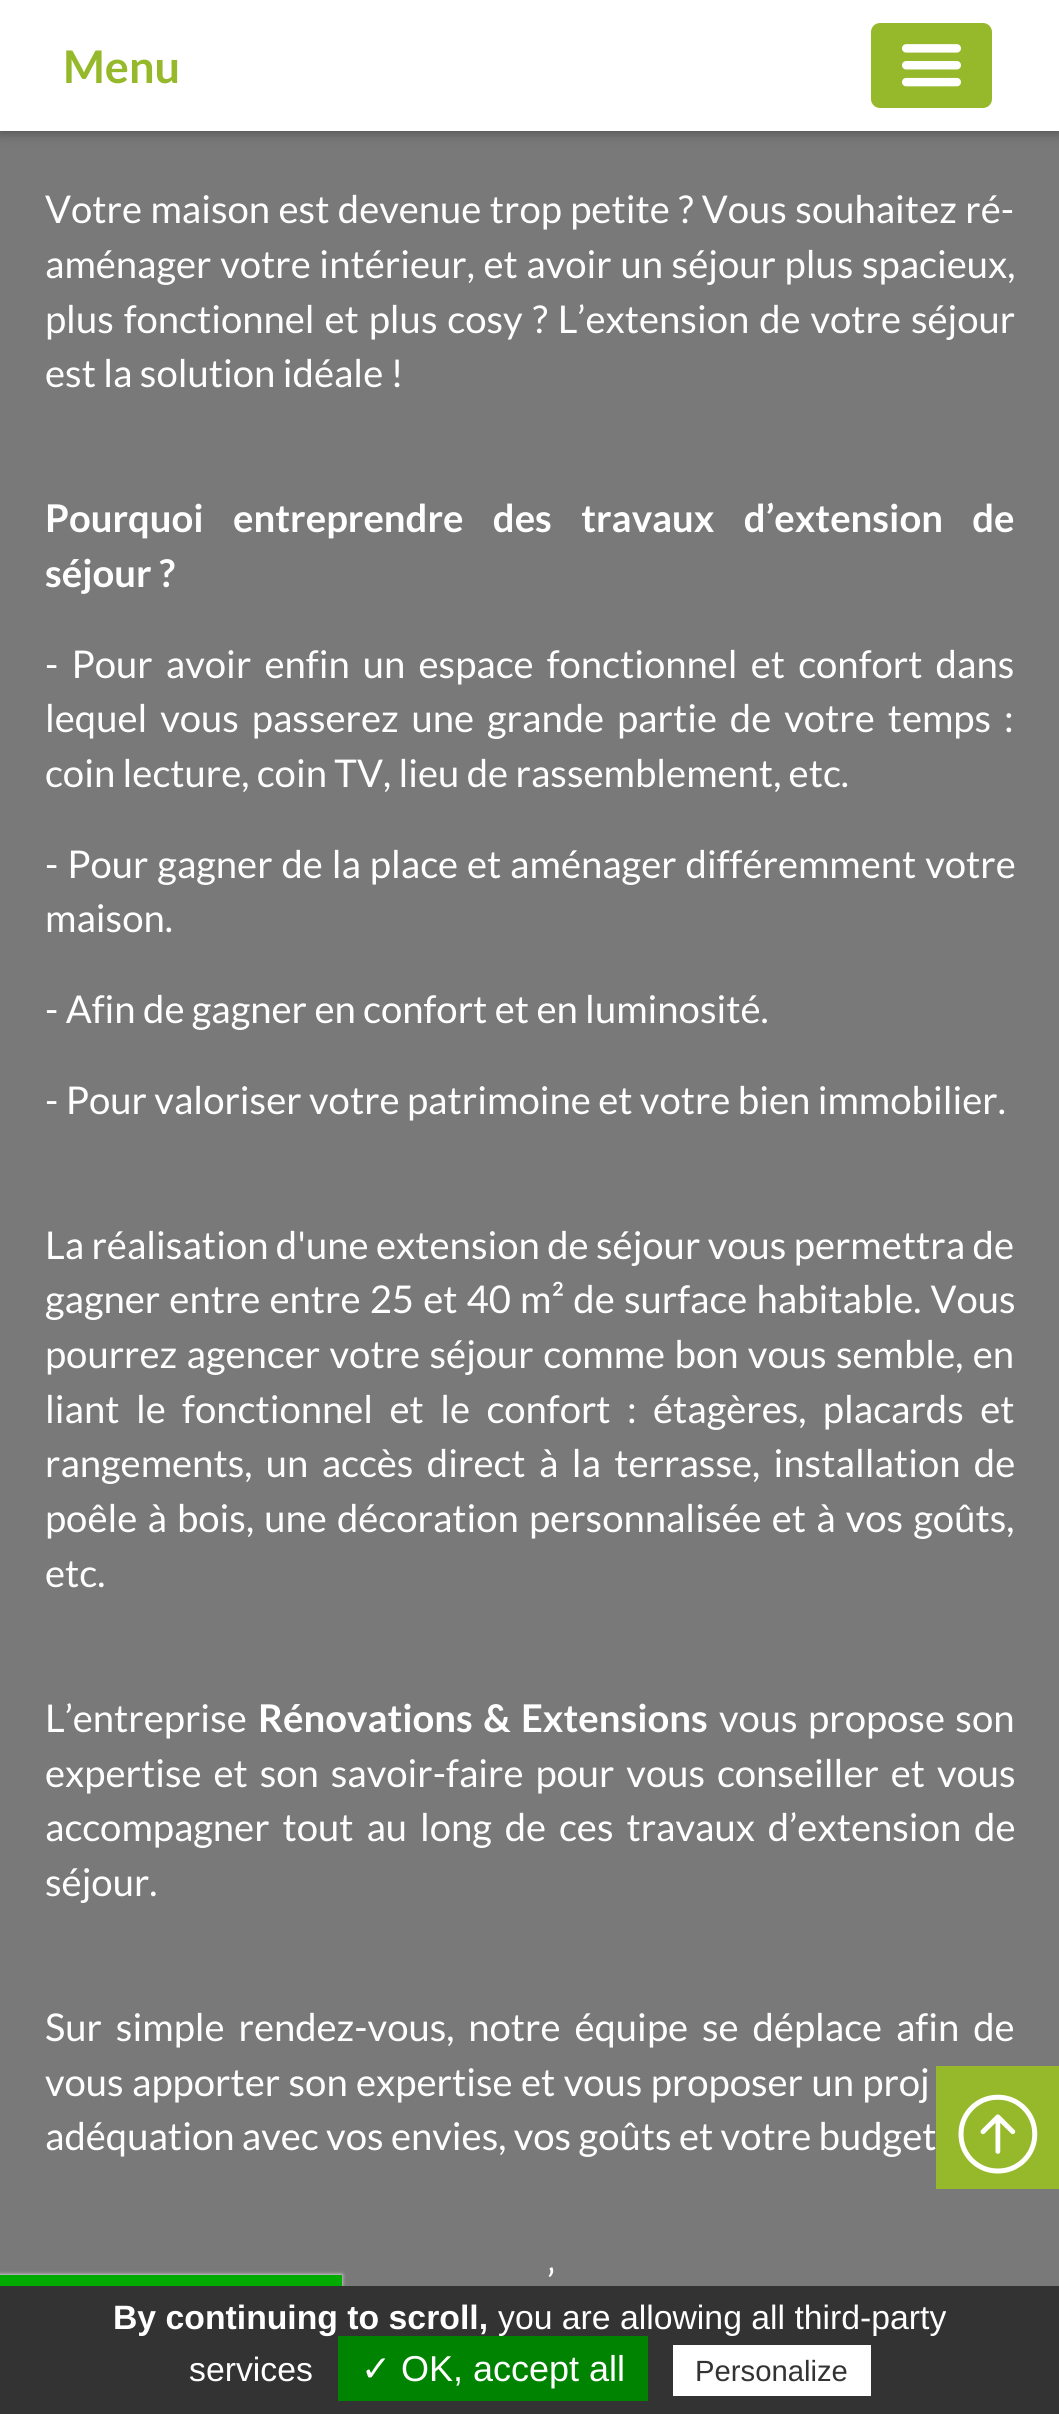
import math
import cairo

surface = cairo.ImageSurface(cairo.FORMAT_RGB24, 1059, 2414)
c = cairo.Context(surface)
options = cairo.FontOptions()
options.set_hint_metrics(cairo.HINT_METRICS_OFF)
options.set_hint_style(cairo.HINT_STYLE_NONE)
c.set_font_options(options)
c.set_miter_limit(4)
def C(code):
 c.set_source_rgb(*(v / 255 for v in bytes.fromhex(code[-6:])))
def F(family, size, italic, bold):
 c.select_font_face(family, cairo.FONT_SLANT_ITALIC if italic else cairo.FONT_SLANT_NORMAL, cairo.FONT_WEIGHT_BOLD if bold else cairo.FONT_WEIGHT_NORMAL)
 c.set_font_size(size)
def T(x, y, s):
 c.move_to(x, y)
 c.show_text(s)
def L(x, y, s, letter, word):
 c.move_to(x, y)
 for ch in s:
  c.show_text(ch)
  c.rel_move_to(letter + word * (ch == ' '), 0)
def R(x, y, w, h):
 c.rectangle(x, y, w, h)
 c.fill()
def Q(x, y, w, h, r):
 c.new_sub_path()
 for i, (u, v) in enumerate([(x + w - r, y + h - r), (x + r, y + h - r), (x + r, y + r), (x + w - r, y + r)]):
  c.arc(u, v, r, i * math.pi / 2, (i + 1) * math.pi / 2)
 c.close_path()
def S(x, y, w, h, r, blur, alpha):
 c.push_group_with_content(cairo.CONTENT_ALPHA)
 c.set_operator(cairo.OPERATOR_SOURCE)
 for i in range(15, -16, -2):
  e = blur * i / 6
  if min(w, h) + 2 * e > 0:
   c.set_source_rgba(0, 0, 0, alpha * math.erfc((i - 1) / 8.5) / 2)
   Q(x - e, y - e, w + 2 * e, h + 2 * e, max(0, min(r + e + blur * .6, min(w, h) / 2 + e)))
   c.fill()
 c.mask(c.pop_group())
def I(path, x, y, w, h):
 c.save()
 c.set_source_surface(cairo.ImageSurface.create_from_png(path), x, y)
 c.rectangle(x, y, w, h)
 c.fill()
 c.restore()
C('797979')
c.paint()
C('000000')
S(0,0,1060,131,0,7,.44)
C('ffffff')
R(0,0,1059,131)
F('Lato',45,0,1)
C('96b92b')
T(63,83,'Menu')
Q(868.5,20.5,126,90,11.5)
c.fill_preserve()
C('ffffff')
c.set_line_width(5)
c.stroke()
I('1.png',902,44,59,43)
F('Lato',38.25,0,0)
L(45,223,'Votre maison est devenue trop petite ? Vous souhaitez ré-',0,1)
L(45,278,'aménager votre intérieur, et avoir un séjour plus spacieux,',0,1.25)
L(45,333,'plus fonctionnel et plus cosy ? L’extension de votre séjour',0,2.5)
T(45,387,'est la solution idéale !')
F('Lato',38.25,0,1)
L(45,532,'Pourquoi entreprendre des travaux d’extension de',0,22)
T(45,587,'séjour ?')
F('Lato',38.25,0,0)
L(45,678,'- Pour avoir enfin un espace fonctionnel et confort dans',0,5.75)
L(45,732,'lequel vous passerez une grande partie de votre temps :',0,5.5)
T(45,787,'coin lecture, coin TV, lieu de rassemblement, etc.')
L(45,878,'- Pour gagner de la place et aménager différemment votre',0,1.5)
T(45,932,'maison.')
T(45,1023,'- Afin de gagner en confort et en luminosité.')
T(45,1114,'- Pour valoriser votre patrimoine et votre bien immobilier.')
T(45,1259,'La réalisation d\'une extension de séjour vous permettra de')
L(45,1313,'gagner entre entre 25 et 40 m² de surface habitable. Vous',0,1.75)
L(45,1368,'pourrez agencer votre séjour comme bon vous semble, en',0,2)
L(45,1423,'liant le fonctionnel et le confort : étagères, placards et',0,9)
L(45,1477,'rangements, un accès direct à la terrasse, installation de',0,6)
L(45,1532,'poêle à bois, une décoration personnalisée et à vos goûts,',0,2.75)
T(45,1587,'etc.')
T(45,1732,'L’entreprise')
F('Lato',38.25,0,1)
L(258,1732,'Rénovations & Extensions',0,3)
F('Lato',38.25,0,0)
L(719,1732,'vous propose son',0,3)
L(45,1787,'expertise et son savoir-faire pour vous conseiller et vous',0,4.5)
L(45,1841,'accompagner tout au long de ces travaux d’extension de',0,5.5)
T(45,1896,'séjour.')
L(45,2041,'Sur simple rendez-vous, notre équipe se déplace afin de',0,6.5)
L(45,2096,'vous apporter son expertise et vous proposer un proj',0,1)
T(45,2150,'adéquation avec vos envies, vos goûts et votre budget')
L(547,2296,'’',0,17)
C('96b92b')
R(936,2066,123,123)
I('2.png',958,2094,80,80)
C('555555')
S(0,2277,342,11,0,2,1)
C('ffffff')
S(0,2275,342,11,0,2,1)
C('00aa00')
R(0,2275,342,11)
C('333333')
R(0,2286,1059,128)
F('Liberation Sans',33.75,0,1)
C('ffffff')
T(113,2329,'By continuing to scroll,')
F('Liberation Sans',33.75,0,0)
T(498,2329,'you are allowing all third-party')
T(189,2381,'services')
C('008300')
R(338,2336,310,65)
F('DejaVu Sans',36,0,0)
C('ffffff')
T(361,2381,'✓')
F('Liberation Sans',36,0,0)
T(401,2381,'OK, accept all')
R(673,2345,198,51)
F('Liberation Sans',29.25,0,0)
C('333333')
T(695,2381,'Personalize')
surface.write_to_png('o.png')
